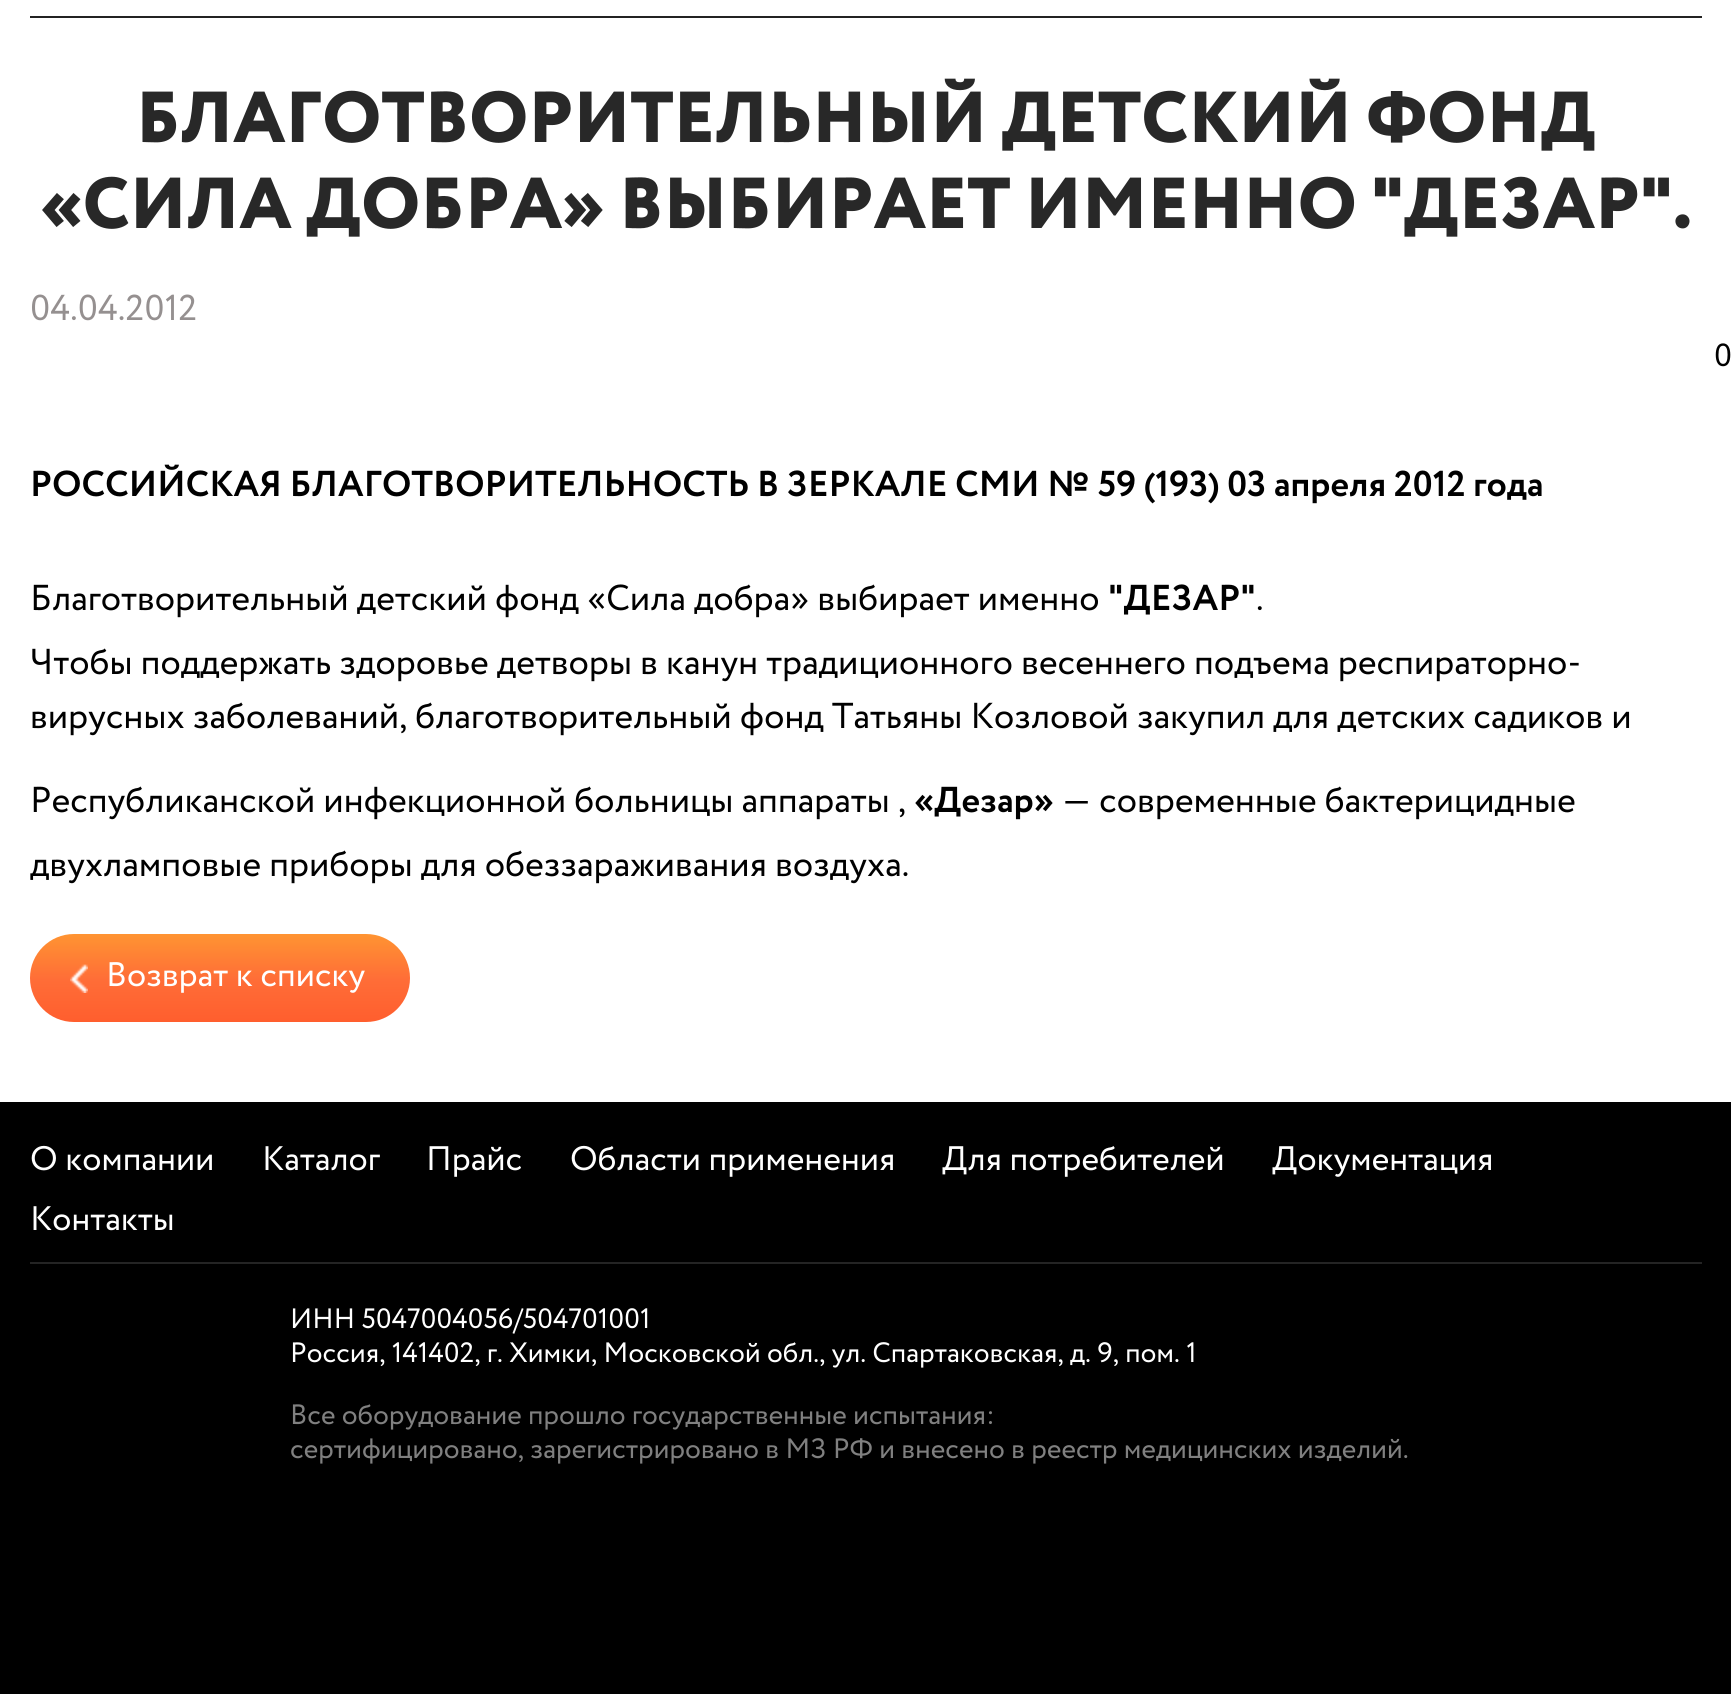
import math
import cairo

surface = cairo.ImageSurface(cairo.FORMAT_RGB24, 1731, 1694)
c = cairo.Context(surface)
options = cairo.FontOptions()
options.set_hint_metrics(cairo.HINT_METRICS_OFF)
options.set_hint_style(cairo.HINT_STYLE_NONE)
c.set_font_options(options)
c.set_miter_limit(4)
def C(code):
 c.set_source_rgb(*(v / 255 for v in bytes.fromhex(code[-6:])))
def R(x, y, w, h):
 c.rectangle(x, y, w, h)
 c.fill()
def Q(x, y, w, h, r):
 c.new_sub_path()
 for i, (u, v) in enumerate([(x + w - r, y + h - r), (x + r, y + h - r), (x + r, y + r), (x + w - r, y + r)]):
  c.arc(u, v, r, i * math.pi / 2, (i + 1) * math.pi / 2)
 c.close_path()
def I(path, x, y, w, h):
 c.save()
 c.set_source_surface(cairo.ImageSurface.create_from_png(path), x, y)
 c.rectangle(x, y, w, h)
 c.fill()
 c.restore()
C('ffffff')
c.paint()
C('232323')
R(30,16,1672,2)
I('1.png',142,78,1453,73)
I('2.png',42,176,1648,61)
I('3.png',32,294,164,27)
I('4.png',33,464,1509,40)
I('5.png',33,584,1065,34)
I('6.png',1110,584,144,31)
I('7.png',1257,606,5,5)
I('8.png',32,648,1547,34)
I('9.png',32,702,1598,34)
I('10.png',33,786,872,34)
I('11.png',915,786,138,34)
I('12.png',1065,786,510,34)
I('13.png',30,850,878,34)
gradient = cairo.LinearGradient(220,1022,220,934)
gradient.add_color_stop_rgba(0,1,0.369,0.18,1)
gradient.add_color_stop_rgba(.48,1,0.427,0.216,1)
gradient.add_color_stop_rgba(1,1,0.58,0.196,1)
c.set_source(gradient)
Q(30,934,380,88,44)
c.fill()
I('14.png',70,964,18,29)
I('15.png',109,962,256,31)
I('16.png',1715,343,16,24)
C('000000')
R(0,1102,1731,592)
C('242424')
R(30,1262,1672,2)
I('17.png',31,1145,181,26)
I('18.png',265,1146,115,25)
I('19.png',429,1146,92,31)
I('20.png',571,1145,322,32)
I('21.png',942,1146,281,31)
I('22.png',1272,1146,219,31)
I('23.png',33,1206,140,25)
I('24.png',292,1308,356,26)
I('25.png',292,1342,902,26)
I('26.png',292,1404,700,26)
I('27.png',291,1438,1117,26)
surface.write_to_png('o.png')
